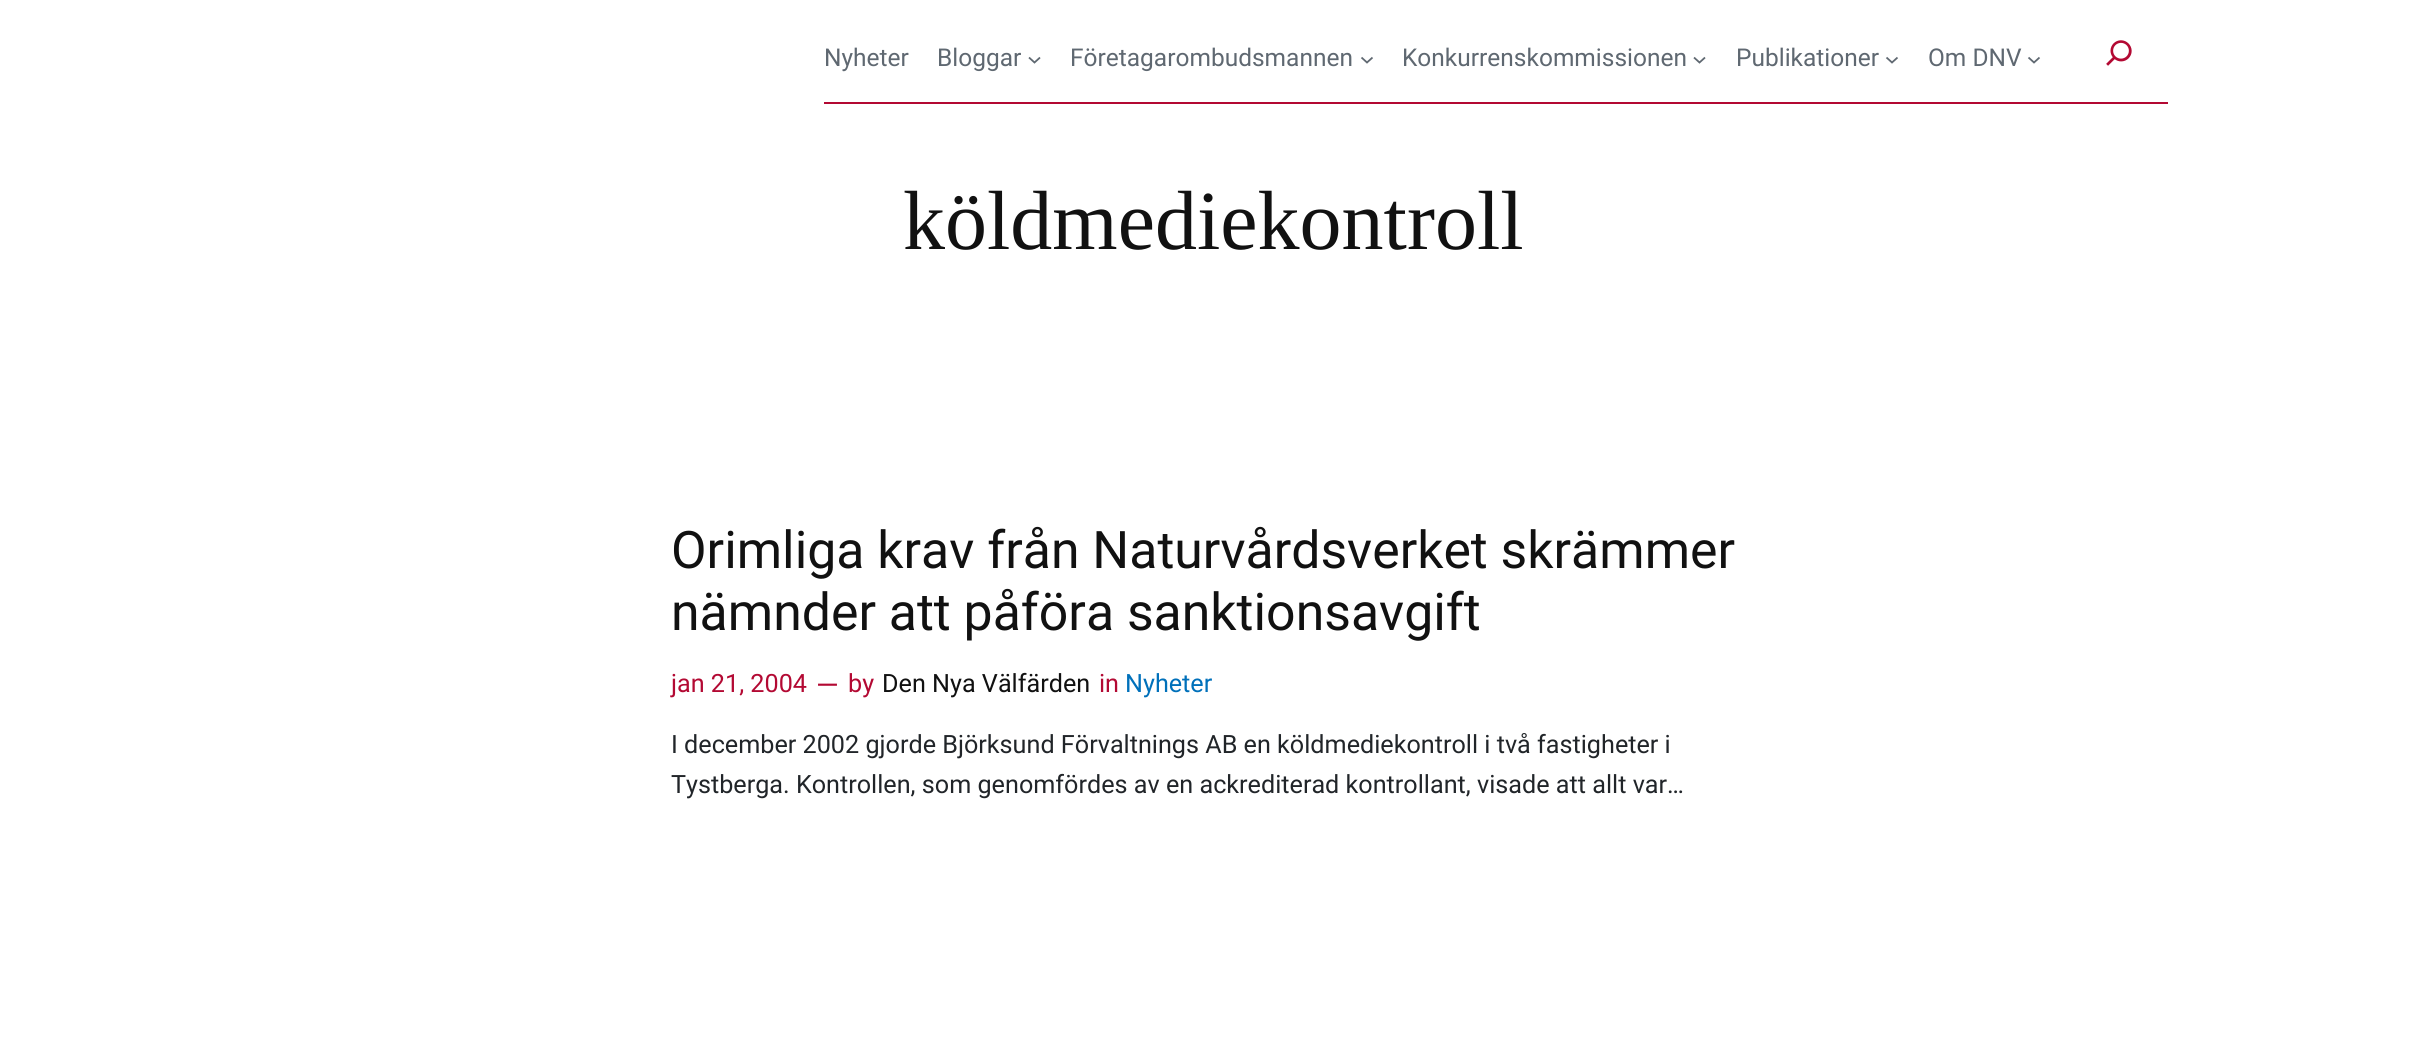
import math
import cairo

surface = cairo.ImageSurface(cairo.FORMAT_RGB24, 2427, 1041)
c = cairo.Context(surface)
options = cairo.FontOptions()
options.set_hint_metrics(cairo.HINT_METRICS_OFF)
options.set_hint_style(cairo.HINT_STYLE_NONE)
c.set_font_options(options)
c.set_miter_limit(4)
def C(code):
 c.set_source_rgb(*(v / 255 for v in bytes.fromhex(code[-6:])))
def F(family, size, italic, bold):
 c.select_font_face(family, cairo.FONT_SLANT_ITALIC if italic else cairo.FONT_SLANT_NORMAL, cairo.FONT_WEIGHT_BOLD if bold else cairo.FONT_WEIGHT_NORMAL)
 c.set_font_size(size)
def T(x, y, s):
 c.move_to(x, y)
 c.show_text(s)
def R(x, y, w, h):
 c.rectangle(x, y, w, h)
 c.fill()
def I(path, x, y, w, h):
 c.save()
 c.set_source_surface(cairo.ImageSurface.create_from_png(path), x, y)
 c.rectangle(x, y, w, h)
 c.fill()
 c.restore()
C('ffffff')
c.paint()
C('b30933')
R(824,102,1344,2)
F('Roboto',24.5,0,0)
C('5f6871')
T(824,66,'Nyheter')
T(937,66,'Bloggar')
c.new_path()
c.move_to(1029,57.5)
c.line_to(1034.5,62.5)
c.line_to(1040,57.5)
c.set_line_width(1.8)
c.stroke()
T(1070,66,'Företagarombudsmannen')
c.new_path()
c.move_to(1361.5,57.5)
c.line_to(1367,62.5)
c.line_to(1372.5,57.5)
c.stroke()
T(1402,66,'Konkurrenskommissionen')
c.new_path()
c.move_to(1694,57.5)
c.line_to(1699.5,62.5)
c.line_to(1705,57.5)
c.stroke()
T(1736,66,'Publikationer')
c.new_path()
c.move_to(1886.5,57.5)
c.line_to(1892,62.5)
c.line_to(1897.5,57.5)
c.stroke()
T(1928,66,'Om DNV')
c.new_path()
c.move_to(2028.5,57.5)
c.line_to(2034,62.5)
c.line_to(2039.5,57.5)
c.stroke()
I('1.png',2106,40,26,26)
F('Liberation Serif',84,0,0)
C('111111')
T(903,249,'köldmediekontroll')
F('Roboto',51.8,0,0)
T(671,568,'Orimliga krav från Naturvårdsverket skrämmer')
T(671,630,'nämnder att påföra sanktionsavgift')
F('Roboto',25.2,0,0)
C('b30933')
T(671,692,'jan 21, 2004')
F('Roboto',29,0,0)
T(816,695,'—')
F('Roboto',25.2,0,0)
T(848,692,'by')
C('111111')
T(882,692,'Den Nya Välfärden')
C('b30933')
T(1099,692,'in')
C('0070ba')
T(1125,692,'Nyheter')
C('212529')
T(671,753,'I december 2002 gjorde Björksund Förvaltnings AB en köldmediekontroll i två fastigheter i')
T(671,793,'Tystberga. Kontrollen, som genomfördes av en ackrediterad kontrollant, visade att allt var…')
surface.write_to_png('o.png')
